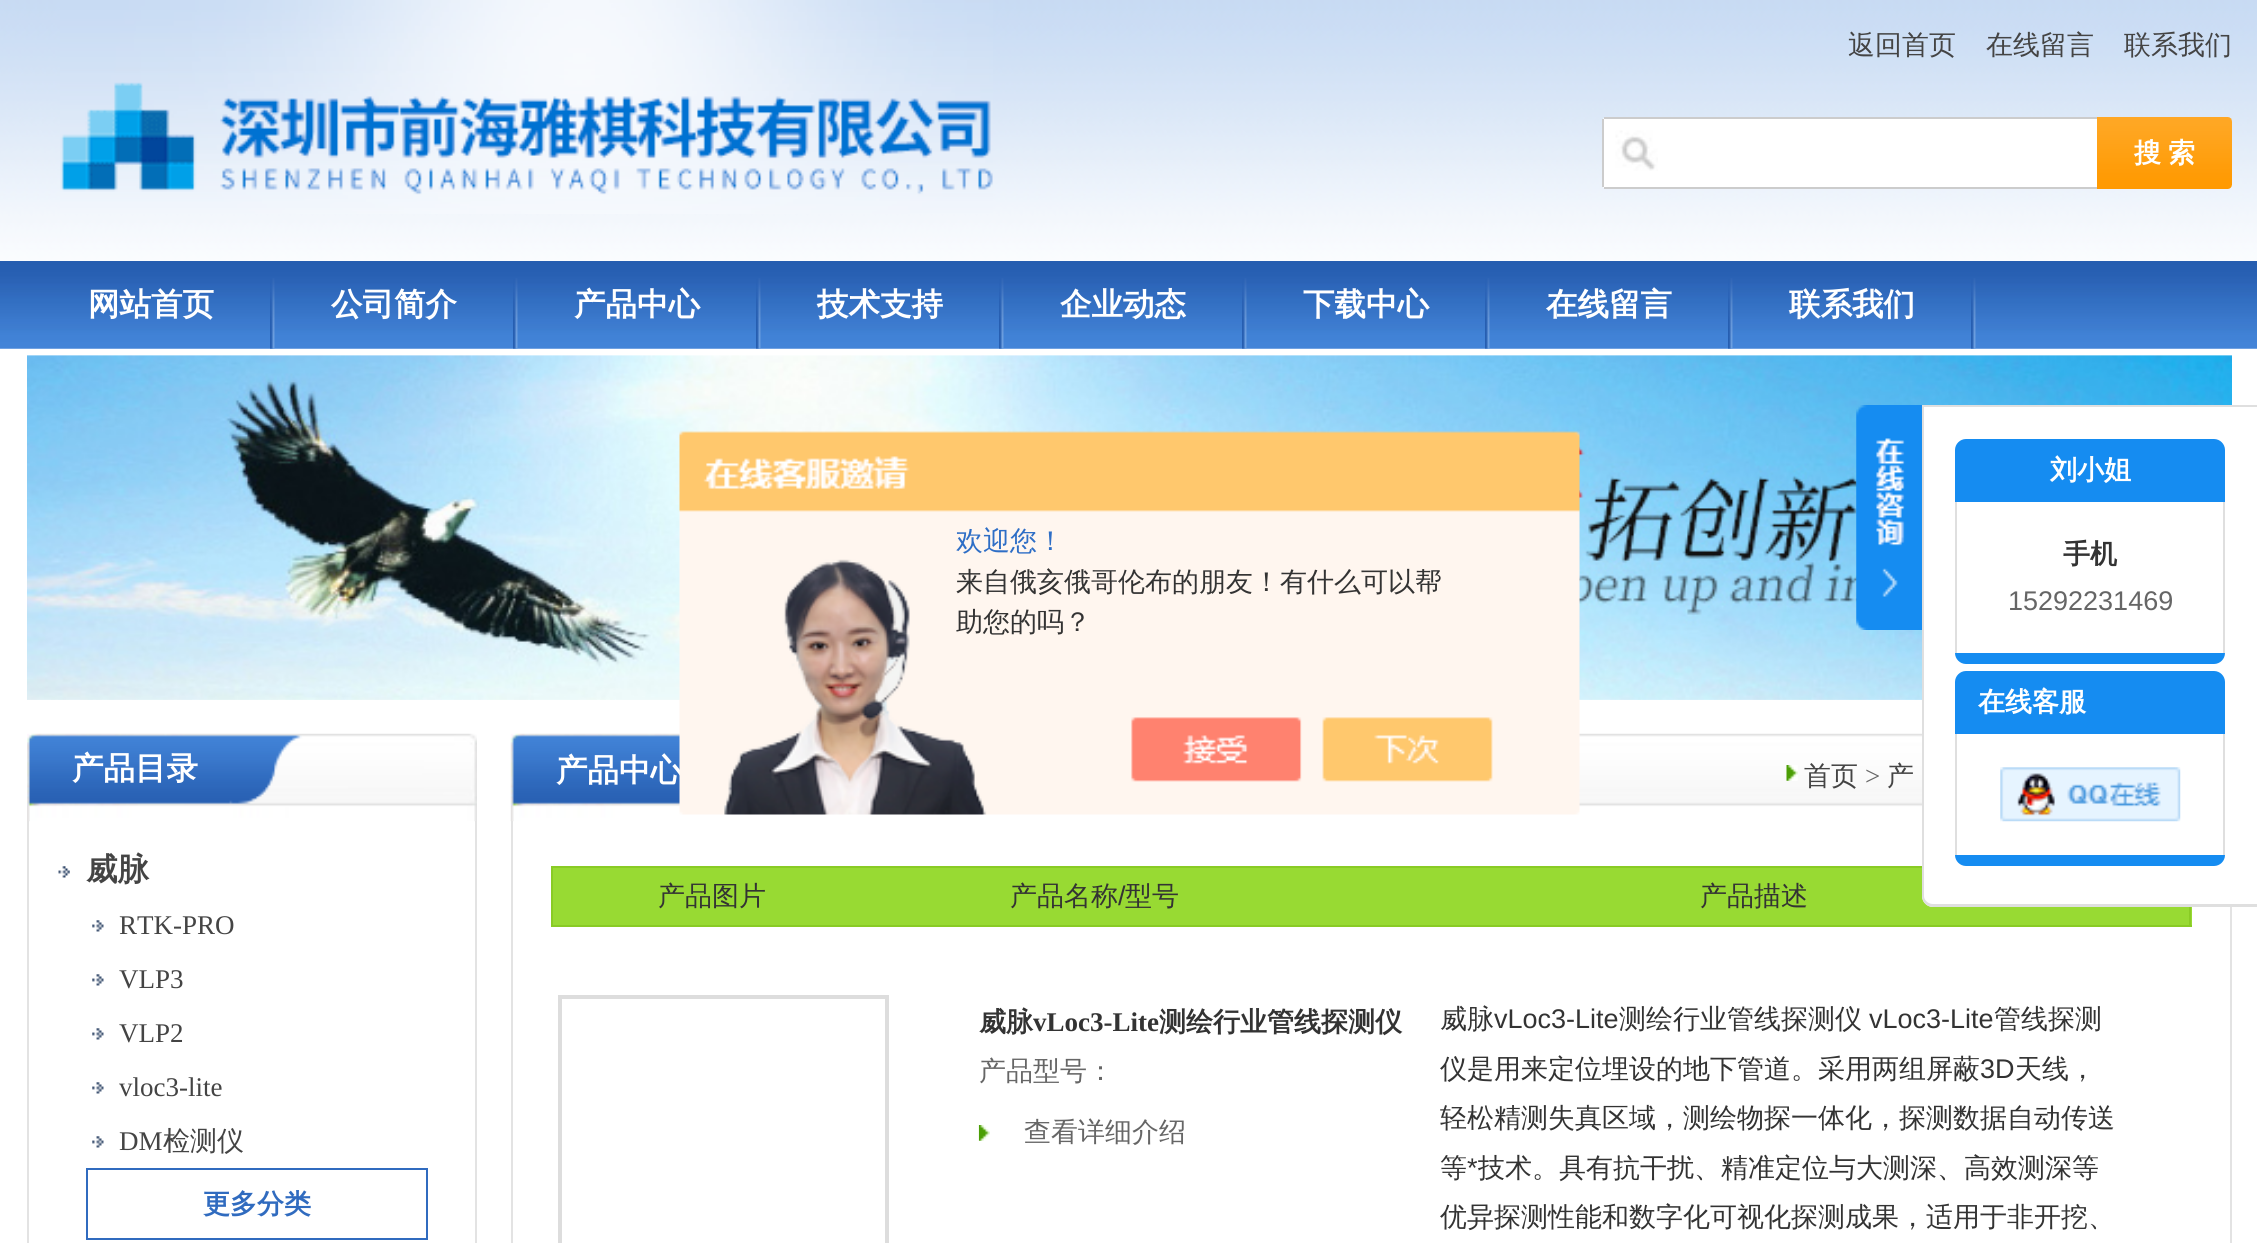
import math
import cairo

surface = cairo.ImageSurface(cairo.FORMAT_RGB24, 2257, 1243)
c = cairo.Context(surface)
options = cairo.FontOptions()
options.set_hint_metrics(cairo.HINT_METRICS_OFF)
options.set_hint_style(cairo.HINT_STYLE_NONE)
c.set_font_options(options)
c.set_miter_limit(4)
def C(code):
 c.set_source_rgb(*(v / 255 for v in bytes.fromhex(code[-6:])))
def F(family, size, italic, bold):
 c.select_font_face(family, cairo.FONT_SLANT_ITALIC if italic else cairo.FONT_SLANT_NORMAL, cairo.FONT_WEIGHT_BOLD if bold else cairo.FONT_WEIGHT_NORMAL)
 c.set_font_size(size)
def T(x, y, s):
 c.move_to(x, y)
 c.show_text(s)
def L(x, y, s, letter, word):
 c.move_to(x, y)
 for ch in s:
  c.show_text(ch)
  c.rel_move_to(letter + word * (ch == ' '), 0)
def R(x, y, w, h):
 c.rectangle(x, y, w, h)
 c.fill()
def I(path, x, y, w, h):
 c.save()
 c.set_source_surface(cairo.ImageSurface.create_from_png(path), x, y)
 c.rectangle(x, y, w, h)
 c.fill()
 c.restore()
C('ffffff')
c.paint()
I('1.png',0,0,2257,261)
I('2.png',60,0,933,214)
F('WenQuanYi Zen Hei Medium',27,0,0)
C('444444')
T(1848,54,'返回首页')
T(1986,54,'在线留言')
T(2124,54,'联系我们')
C('ffffff')
c.new_path()
c.move_to(1607,117)
c.line_to(2097,117)
c.line_to(2097,189)
c.line_to(1607,189)
c.curve_to(1604,189,1602,187,1602,184)
c.line_to(1602,122)
c.curve_to(1602,119,1604,117,1607,117)
c.close_path()
c.fill()
I('3.png',1615,130,43,41)
C('cccccc')
R(1604,117,493,2)
R(1604,187,493,2)
R(1602,119,2,68)
I('4.png',2097,117,135,72)
F('WenQuanYi Zen Hei',27,0,1)
C('ffffff')
L(2134,162,'搜 索',0,-1)
I('5.png',0,261,2257,88)
I('6.png',270,278,5,71)
F('WenQuanYi Zen Hei',31.5,0,1)
T(88,315,'网站首页')
I('6.png',513,278,5,71)
T(331,315,'公司简介')
I('6.png',756,278,5,71)
T(574,315,'产品中心')
I('6.png',999,278,5,71)
T(817,315,'技术支持')
I('6.png',1242,278,5,71)
T(1060,315,'企业动态')
I('6.png',1485,278,5,71)
T(1303,315,'下载中心')
I('6.png',1728,278,5,71)
T(1546,315,'在线留言')
I('6.png',1971,278,5,71)
T(1789,315,'联系我们')
I('7.png',27,355,2205,345)
I('8.png',27,355,2205,345)
I('15.png',510,733,1412,89)
T(556,781,'产品中心')
I('9.png',679,431,901,384)
F('WenQuanYi Zen Hei Medium',27,0,0)
C('2e6ec6')
T(956,550,'欢迎您！')
C('333333')
T(956,591,'来自俄亥俄哥伦布的朋友！有什么可以帮')
T(956,631,'助您的吗？')
I('10.png',1856,405,66,225)
C('98da33')
R(553,868,1639,57)
C('ffffff')
c.new_path()
c.move_to(1922,405)
c.line_to(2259,405)
c.line_to(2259,907)
c.line_to(1933,907)
c.curve_to(1927,907,1922,902,1922,896)
c.close_path()
c.fill()
C('dfdfdf')
c.set_fill_rule(cairo.FILL_RULE_EVEN_ODD)
c.new_path()
c.move_to(1922,405)
c.line_to(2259,405)
c.line_to(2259,907)
c.line_to(1933,907)
c.curve_to(1927,907,1922,902,1922,896)
c.close_path()
c.move_to(1924,407)
c.line_to(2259,407)
c.line_to(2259,904)
c.line_to(1933,904)
c.curve_to(1928,904,1924,900,1924,896)
c.close_path()
c.fill()
C('158cf1')
c.new_path()
c.move_to(1966,439)
c.line_to(2214,439)
c.curve_to(2220,439,2225,444,2225,450)
c.line_to(2225,502)
c.line_to(1955,502)
c.line_to(1955,450)
c.curve_to(1955,444,1960,439,1966,439)
c.close_path()
c.fill()
F('WenQuanYi Zen Hei',27,0,1)
C('ffffff')
T(2050,479,'刘小姐')
C('dfdfdf')
R(2223,502,2,151)
R(1955,502,2,151)
C('333333')
T(2063,563,'手机')
F('Liberation Sans',27,0,0)
C('666666')
T(2008,610,'15292231469')
C('158cf1')
c.new_path()
c.move_to(1955,653)
c.line_to(2225,653)
c.curve_to(2225,659,2220,664,2214,664)
c.line_to(1966,664)
c.curve_to(1960,664,1955,659,1955,653)
c.close_path()
c.fill()
c.new_path()
c.move_to(1966,671)
c.line_to(2214,671)
c.curve_to(2220,671,2225,676,2225,682)
c.line_to(2225,734)
c.line_to(1955,734)
c.line_to(1955,682)
c.curve_to(1955,676,1960,671,1966,671)
c.close_path()
c.fill()
F('WenQuanYi Zen Hei',27,0,1)
C('ffffff')
T(1978,711,'在线客服')
C('dfdfdf')
R(2223,734,2,121)
R(1955,734,2,121)
I('11.png',2000,767,181,55)
C('158cf1')
c.new_path()
c.move_to(1955,855)
c.line_to(2225,855)
c.curve_to(2225,861,2220,866,2214,866)
c.line_to(1966,866)
c.curve_to(1960,866,1955,861,1955,855)
c.close_path()
c.fill()
I('12.png',27,733,450,89)
F('WenQuanYi Zen Hei',31.5,0,1)
C('ffffff')
T(72,779,'产品目录')
C('e3e3e3')
R(475,821,2,422)
R(27,821,2,422)
I('13.png',58,866,12,12)
C('444444')
T(86,880,'威脉')
I('14.png',92,920,12,12)
F('Liberation Serif',27,0,0)
T(119,934,'RTK-PRO')
I('14.png',92,974,12,12)
T(119,988,'VLP3')
I('14.png',92,1028,12,12)
T(119,1042,'VLP2')
I('14.png',92,1082,12,12)
T(119,1096,'vloc3-lite')
I('14.png',92,1136,12,12)
T(119,1150,'DM')
F('WenQuanYi Zen Hei Medium',27,0,0)
T(163,1150,'检测仪')
c.rectangle(87,1169,340,70)
C('306bbf')
c.stroke()
F('WenQuanYi Zen Hei',27,0,1)
T(203,1213,'更多分类')
I('16.png',1786,765,12,16)
F('WenQuanYi Zen Hei Medium',27,0,0)
C('444444')
T(1804,785,'首页')
F('Liberation Serif',27,0,0)
C('666666')
T(1865,785,'>')
F('WenQuanYi Zen Hei Medium',27,0,0)
C('444444')
T(1887,785,'产')
C('e3e3e3')
R(2230,907,2,336)
R(511,821,2,422)
C('89cb25')
R(551,866,1371,2)
R(2189,907,2,20)
R(551,925,1641,2)
R(551,866,2,61)
C('333333')
T(658,905,'产品图片')
T(1010,905,'产品名称')
F('Liberation Sans',27,0,0)
T(1118,905,'/')
F('WenQuanYi Zen Hei Medium',27,0,0)
T(1125,905,'型号')
T(1700,905,'产品描述')
c.rectangle(559,996,329,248)
C('dddddd')
c.stroke()
c.rectangle(561,998,325,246)
c.stroke()
F('WenQuanYi Zen Hei',27,0,1)
C('333333')
T(979,1031,'威脉')
F('Liberation Serif',27,0,1)
T(1033,1031,'vLoc3-Lite')
F('WenQuanYi Zen Hei',27,0,1)
T(1159,1031,'测绘行业管线探测仪')
F('WenQuanYi Zen Hei Medium',27,0,0)
C('666666')
T(979,1080,'产品型号：')
I('17.png',978,1125,12,16)
T(1024,1141,'查看详细介绍')
C('333333')
T(1440,1028,'威脉')
F('Liberation Sans',27,0,0)
T(1494,1028,'vLoc3-Lite')
F('WenQuanYi Zen Hei Medium',27,0,0)
T(1619,1028,'测绘行业管线探测仪')
F('Liberation Sans',27,0,0)
T(1869,1028,'vLoc3-Lite')
F('WenQuanYi Zen Hei Medium',27,0,0)
T(1994,1028,'管线探测')
T(1440,1078,'仪是用来定位埋设的地下管道。采用两组屏蔽')
F('Liberation Sans',27,0,0)
T(1980,1078,'3D')
F('WenQuanYi Zen Hei Medium',27,0,0)
T(2015,1078,'天线，')
T(1440,1127,'轻松精测失真区域，测绘物探一体化，探测数据自动传送')
T(1440,1177,'等')
F('Liberation Sans',27,0,0)
T(1467,1177,'*')
F('WenQuanYi Zen Hei Medium',27,0,0)
T(1478,1177,'技术。具有抗干扰、精准定位与大测深、高效测深等')
T(1440,1226,'优异探测性能和数字化可视化探测成果，适用于非开挖、')
surface.write_to_png('o.png')
